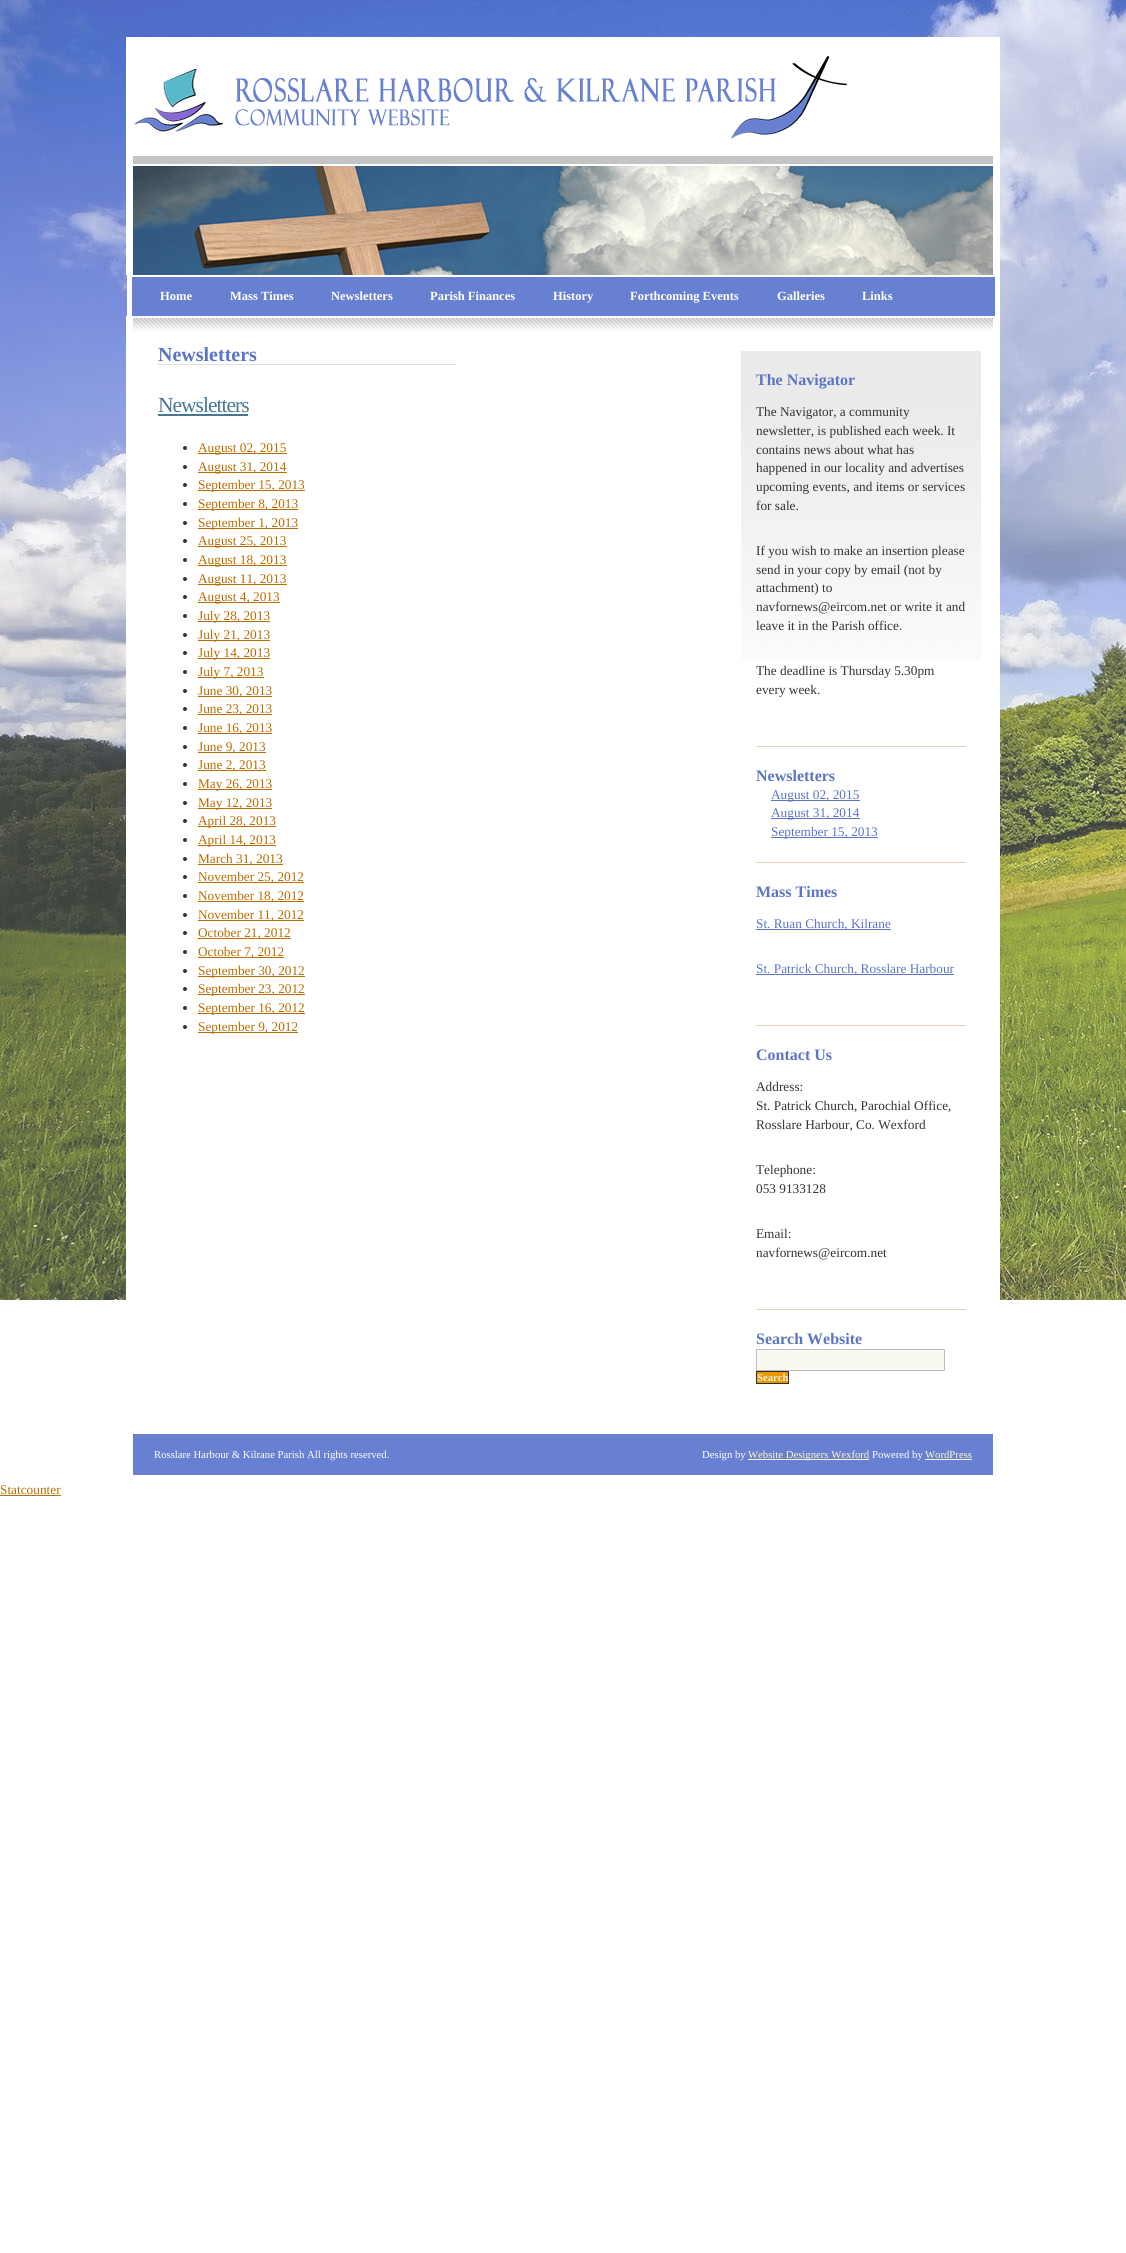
import math
import cairo

surface = cairo.ImageSurface(cairo.FORMAT_RGB24, 1126, 2253)
c = cairo.Context(surface)
options = cairo.FontOptions()
options.set_hint_metrics(cairo.HINT_METRICS_OFF)
options.set_hint_style(cairo.HINT_STYLE_NONE)
c.set_font_options(options)
c.set_miter_limit(4)
def C(code):
 c.set_source_rgb(*(v / 255 for v in bytes.fromhex(code[-6:])))
def F(family, size, italic, bold):
 c.select_font_face(family, cairo.FONT_SLANT_ITALIC if italic else cairo.FONT_SLANT_NORMAL, cairo.FONT_WEIGHT_BOLD if bold else cairo.FONT_WEIGHT_NORMAL)
 c.set_font_size(size)
def T(x, y, s):
 c.move_to(x, y)
 c.show_text(s)
def L(x, y, s, letter, word):
 c.move_to(x, y)
 for ch in s:
  c.show_text(ch)
  c.rel_move_to(letter + word * (ch == ' '), 0)
def R(x, y, w, h):
 c.rectangle(x, y, w, h)
 c.fill()
def I(path, x, y, w, h):
 c.save()
 c.set_source_surface(cairo.ImageSurface.create_from_png(path), x, y)
 c.rectangle(x, y, w, h)
 c.fill()
 c.restore()
C('ffffff')
c.paint()
I('1.png',0,0,1126,1300)
C('c4c4c4')
R(133,156,860,8)
I('2.png',133,44,860,112)
C('ffffff')
R(126,37,874,7)
R(993,37,7,238)
R(126,164,874,2)
R(126,37,7,238)
I('3.png',133,166,860,109)
C('6780d2')
R(132,277,863,39)
C('ffffff')
R(127,275,873,2)
R(995,275,5,41)
R(127,275,5,41)
F('Liberation Serif',12.5,0,1)
T(160,300,'Home')
T(230,300,'Mass Times')
T(331,300,'Newsletters')
T(430,300,'Parish Finances')
T(553,300,'History')
T(630,300,'Forthcoming Events')
T(777,300,'Galleries')
T(862,300,'Links')
R(133,332,860,968)
I('4.png',133,318,860,14)
R(126,316,874,2)
R(993,316,7,984)
R(126,316,7,984)
F('Liberation Serif',20,0,1)
C('5d74c3')
T(158,361,'Newsletters')
C('e1e1e1')
R(158,364,299,1)
F('Liberation Serif',21.5,0,0)
C('487792')
L(158,412,'Newsletters',-1,0)
R(158,414,90,2)
C('333333')
c.new_path()
c.arc(185,448,2,0,2 * math.pi)
c.fill()
C('b96d00')
R(198,453,89,1)
F('Liberation Serif',13.3,0,0)
T(198,452,'August 02, 2015')
C('333333')
c.new_path()
c.arc(185,467,2,0,2 * math.pi)
c.fill()
C('b96d00')
R(198,472,89,1)
T(198,471,'August 31, 2014')
C('333333')
c.new_path()
c.arc(185,485,2,0,2 * math.pi)
c.fill()
C('b96d00')
R(198,490,107,1)
T(198,489,'September 15, 2013')
C('333333')
c.new_path()
c.arc(185,504,2,0,2 * math.pi)
c.fill()
C('b96d00')
R(198,509,100,1)
T(198,508,'September 8, 2013')
C('333333')
c.new_path()
c.arc(185,523,2,0,2 * math.pi)
c.fill()
C('b96d00')
R(198,528,100,1)
T(198,527,'September 1, 2013')
C('333333')
c.new_path()
c.arc(185,541,2,0,2 * math.pi)
c.fill()
C('b96d00')
R(198,546,89,1)
T(198,545,'August 25, 2013')
C('333333')
c.new_path()
c.arc(185,560,2,0,2 * math.pi)
c.fill()
C('b96d00')
R(198,565,89,1)
T(198,564,'August 18, 2013')
C('333333')
c.new_path()
c.arc(185,579,2,0,2 * math.pi)
c.fill()
C('b96d00')
R(198,584,89,1)
T(198,583,'August 11, 2013')
C('333333')
c.new_path()
c.arc(185,597,2,0,2 * math.pi)
c.fill()
C('b96d00')
R(198,602,82,1)
T(198,601,'August 4, 2013')
C('333333')
c.new_path()
c.arc(185,616,2,0,2 * math.pi)
c.fill()
C('b96d00')
R(198,621,72,1)
T(198,620,'July 28, 2013')
C('333333')
c.new_path()
c.arc(185,635,2,0,2 * math.pi)
c.fill()
C('b96d00')
R(198,640,72,1)
T(198,639,'July 21, 2013')
C('333333')
c.new_path()
c.arc(185,653,2,0,2 * math.pi)
c.fill()
C('b96d00')
R(198,658,72,1)
T(198,657,'July 14, 2013')
C('333333')
c.new_path()
c.arc(185,672,2,0,2 * math.pi)
c.fill()
C('b96d00')
R(198,677,66,1)
T(198,676,'July 7, 2013')
C('333333')
c.new_path()
c.arc(185,691,2,0,2 * math.pi)
c.fill()
C('b96d00')
R(198,696,74,1)
T(198,695,'June 30, 2013')
C('333333')
c.new_path()
c.arc(185,709,2,0,2 * math.pi)
c.fill()
C('b96d00')
R(198,714,74,1)
T(198,713,'June 23, 2013')
C('333333')
c.new_path()
c.arc(185,728,2,0,2 * math.pi)
c.fill()
C('b96d00')
R(198,733,74,1)
T(198,732,'June 16, 2013')
C('333333')
c.new_path()
c.arc(185,747,2,0,2 * math.pi)
c.fill()
C('b96d00')
R(198,752,68,1)
T(198,751,'June 9, 2013')
C('333333')
c.new_path()
c.arc(185,765,2,0,2 * math.pi)
c.fill()
C('b96d00')
R(198,770,68,1)
T(198,769,'June 2, 2013')
C('333333')
c.new_path()
c.arc(185,784,2,0,2 * math.pi)
c.fill()
C('b96d00')
R(198,789,74,1)
T(198,788,'May 26, 2013')
C('333333')
c.new_path()
c.arc(185,803,2,0,2 * math.pi)
c.fill()
C('b96d00')
R(198,808,74,1)
T(198,807,'May 12, 2013')
C('333333')
c.new_path()
c.arc(185,821,2,0,2 * math.pi)
c.fill()
C('b96d00')
R(198,826,78,1)
T(198,825,'April 28, 2013')
C('333333')
c.new_path()
c.arc(185,840,2,0,2 * math.pi)
c.fill()
C('b96d00')
R(198,845,78,1)
T(198,844,'April 14, 2013')
C('333333')
c.new_path()
c.arc(185,859,2,0,2 * math.pi)
c.fill()
C('b96d00')
R(198,864,85,1)
T(198,863,'March 31, 2013')
C('333333')
c.new_path()
c.arc(185,877,2,0,2 * math.pi)
c.fill()
C('b96d00')
R(198,882,106,1)
T(198,881,'November 25, 2012')
C('333333')
c.new_path()
c.arc(185,896,2,0,2 * math.pi)
c.fill()
C('b96d00')
R(198,901,106,1)
T(198,900,'November 18, 2012')
C('333333')
c.new_path()
c.arc(185,915,2,0,2 * math.pi)
c.fill()
C('b96d00')
R(198,920,106,1)
T(198,919,'November 11, 2012')
C('333333')
c.new_path()
c.arc(185,933,2,0,2 * math.pi)
c.fill()
C('b96d00')
R(198,938,93,1)
T(198,937,'October 21, 2012')
C('333333')
c.new_path()
c.arc(185,952,2,0,2 * math.pi)
c.fill()
C('b96d00')
R(198,957,86,1)
T(198,956,'October 7, 2012')
C('333333')
c.new_path()
c.arc(185,971,2,0,2 * math.pi)
c.fill()
C('b96d00')
R(198,976,107,1)
T(198,975,'September 30, 2012')
C('333333')
c.new_path()
c.arc(185,989,2,0,2 * math.pi)
c.fill()
C('b96d00')
R(198,994,107,1)
T(198,993,'September 23, 2012')
C('333333')
c.new_path()
c.arc(185,1008,2,0,2 * math.pi)
c.fill()
C('b96d00')
R(198,1013,107,1)
T(198,1012,'September 16, 2012')
C('333333')
c.new_path()
c.arc(185,1027,2,0,2 * math.pi)
c.fill()
C('b96d00')
R(198,1032,100,1)
T(198,1031,'September 9, 2012')
I('5.png',741,351,240,309)
F('Liberation Serif',16,0,1)
C('5d74c3')
T(756,385,'The Navigator')
F('Liberation Serif',13.3,0,0)
C('333333')
T(756,416,'The Navigator, a community')
T(756,435,'newsletter, is published each week. It')
T(756,454,'contains news about what has')
T(756,472,'happened in our locality and advertises')
T(756,491,'upcoming events, and items or services')
T(756,510,'for sale.')
T(756,555,'If you wish to make an insertion please')
T(756,574,'send in your copy by email (not by')
T(756,592,'attachment) to')
T(756,611,'navfornews@eircom.net or write it and')
T(756,630,'leave it in the Parish office.')
T(756,675,'The deadline is Thursday 5.30pm')
T(756,694,'every week.')
C('e1d2bd')
R(756,746,210,1)
F('Liberation Serif',16,0,1)
C('5d74c3')
T(756,781,'Newsletters')
C('e1d2bd')
R(756,862,210,1)
C('5d74c3')
R(771,800,89,1)
F('Liberation Serif',13.3,0,0)
T(771,799,'August 02, 2015')
R(771,818,89,1)
T(771,817,'August 31, 2014')
R(771,837,107,1)
T(771,836,'September 15, 2013')
F('Liberation Serif',16,0,1)
T(756,897,'Mass Times')
R(756,929,135,1)
F('Liberation Serif',13.3,0,0)
T(756,928,'St. Ruan Church, Kilrane')
R(756,974,198,1)
T(756,973,'St. Patrick Church, Rosslare Harbour')
C('e1d2bd')
R(756,1025,210,1)
F('Liberation Serif',16,0,1)
C('5d74c3')
T(756,1060,'Contact Us')
F('Liberation Serif',13.3,0,0)
C('333333')
T(756,1091,'Address:')
T(756,1110,'St. Patrick Church, Parochial Office,')
T(756,1129,'Rosslare Harbour, Co. Wexford')
T(756,1174,'Telephone:')
T(756,1193,'053 9133128')
T(756,1238,'Email:')
T(756,1257,'navfornews@eircom.net')
C('e1d2bd')
R(756,1309,210,1)
F('Liberation Serif',16,0,1)
C('5d74c3')
T(756,1344,'Search Website')
C('f9f8f1')
c.rectangle(756.5,1349.5,188,21)
c.fill_preserve()
C('b8bdc0')
c.set_line_width(1)
c.stroke()
C('ed9700')
c.rectangle(756.5,1371.5,32,12)
c.fill_preserve()
C('2e2e2e')
c.stroke()
F('Liberation Serif',10.7,0,1)
C('f2f3de')
T(757,1381,'Search')
C('6780d2')
R(133,1434,860,41)
F('Liberation Serif',10.7,0,0)
C('ffffff')
T(154,1458,'Rosslare Harbour & Kilrane Parish All rights reserved.')
T(702,1458,'Design by')
C('fff9c9')
R(748,1459,121,1)
T(748,1458,'Website Designers Wexford')
C('ffffff')
T(872,1458,'Powered by')
C('fff9c9')
T(925,1458,'WordPress')
R(925,1459,47,1)
F('Liberation Serif',13.3,0,0)
C('b96d00')
T(0,1494,'Statcounter')
R(0,1495,61,1)
surface.write_to_png('o.png')
